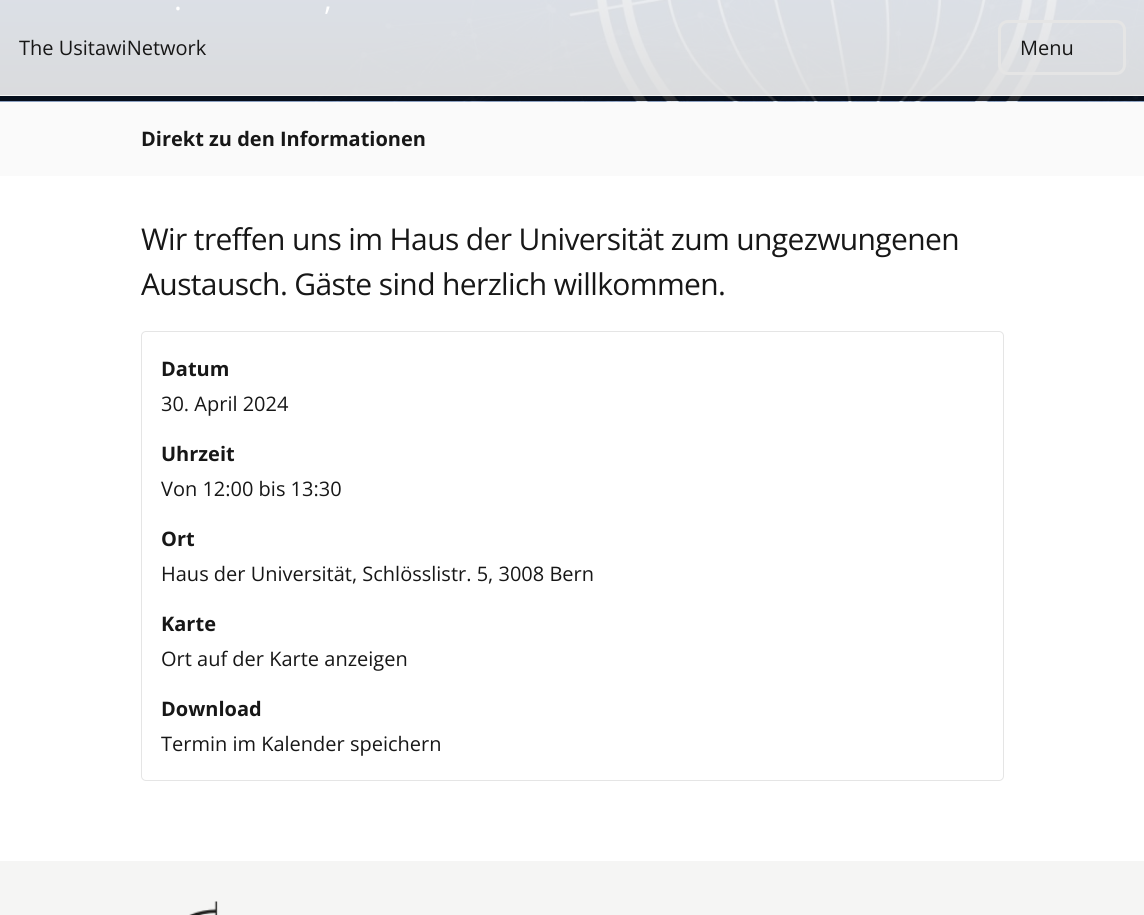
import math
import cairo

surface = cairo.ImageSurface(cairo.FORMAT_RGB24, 1144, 915)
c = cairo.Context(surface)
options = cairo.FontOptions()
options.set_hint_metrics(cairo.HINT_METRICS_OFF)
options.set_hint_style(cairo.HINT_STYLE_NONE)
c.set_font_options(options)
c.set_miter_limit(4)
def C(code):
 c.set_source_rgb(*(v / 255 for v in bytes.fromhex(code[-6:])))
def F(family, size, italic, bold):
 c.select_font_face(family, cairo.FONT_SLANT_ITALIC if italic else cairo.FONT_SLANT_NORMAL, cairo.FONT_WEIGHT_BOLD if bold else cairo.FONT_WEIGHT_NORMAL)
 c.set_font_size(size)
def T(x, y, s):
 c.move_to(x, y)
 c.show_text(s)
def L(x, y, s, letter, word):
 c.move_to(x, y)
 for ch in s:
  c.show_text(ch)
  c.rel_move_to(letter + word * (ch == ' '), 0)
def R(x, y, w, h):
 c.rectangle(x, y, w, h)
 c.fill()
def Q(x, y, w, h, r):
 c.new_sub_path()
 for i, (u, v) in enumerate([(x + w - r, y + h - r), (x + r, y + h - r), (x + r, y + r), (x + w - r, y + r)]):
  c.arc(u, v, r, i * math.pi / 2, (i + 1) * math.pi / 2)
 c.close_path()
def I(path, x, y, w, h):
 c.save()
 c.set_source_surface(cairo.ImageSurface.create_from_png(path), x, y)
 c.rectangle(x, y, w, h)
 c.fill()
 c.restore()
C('ffffff')
c.paint()
C('fafafa')
R(0,101,1144,75)
I('1.png',0,0,1144,102)
F('Open Sans',30,0,0)
C('ffffff')
L(174,10,'.',-.62,0)
L(324,10,',',-.62,0)
F('Open Sans',20,0,1)
C('171717')
T(141,146,'Direkt zu den Informationen')
F('Open Sans',30,0,0)
L(141,250,'Wir treffen uns im Haus der Universität zum ungezwungenen',-.62,0)
L(141,295,'Austausch. Gäste sind herzlich willkommen.',-.62,0)
Q(141.5,331.5,862,449,4.5)
C('e5e5e5')
c.set_line_width(1)
c.stroke()
F('Open Sans',20,0,1)
C('171717')
T(161,376,'Datum')
F('Open Sans',20,0,0)
T(161,411,'30. April 2024')
F('Open Sans',20,0,1)
T(161,461,'Uhrzeit')
F('Open Sans',20,0,0)
T(161,496,'Von 12:00 bis 13:30')
F('Open Sans',20,0,1)
T(161,546,'Ort')
F('Open Sans',20,0,0)
T(161,581,'Haus der Universität, Schlösslistr. 5, 3008 Bern')
F('Open Sans',20,0,1)
T(161,631,'Karte')
F('Open Sans',20,0,0)
T(161,666,'Ort auf der Karte anzeigen')
F('Open Sans',20,0,1)
T(161,716,'Download')
F('Open Sans',20,0,0)
T(161,751,'Termin im Kalender speichern')
C('f5f5f4')
R(0,95,1144,1)
C('171717')
T(19,55,'The UsitawiNetwork')
Q(999.5,21.5,125,52,8.5)
C('e5e5e5')
c.set_line_width(3)
c.stroke()
C('171717')
T(1020,55,'Menu')
C('f5f5f4')
R(0,861,1144,54)
I('2.png',189,901,29,14)
surface.write_to_png('o.png')
